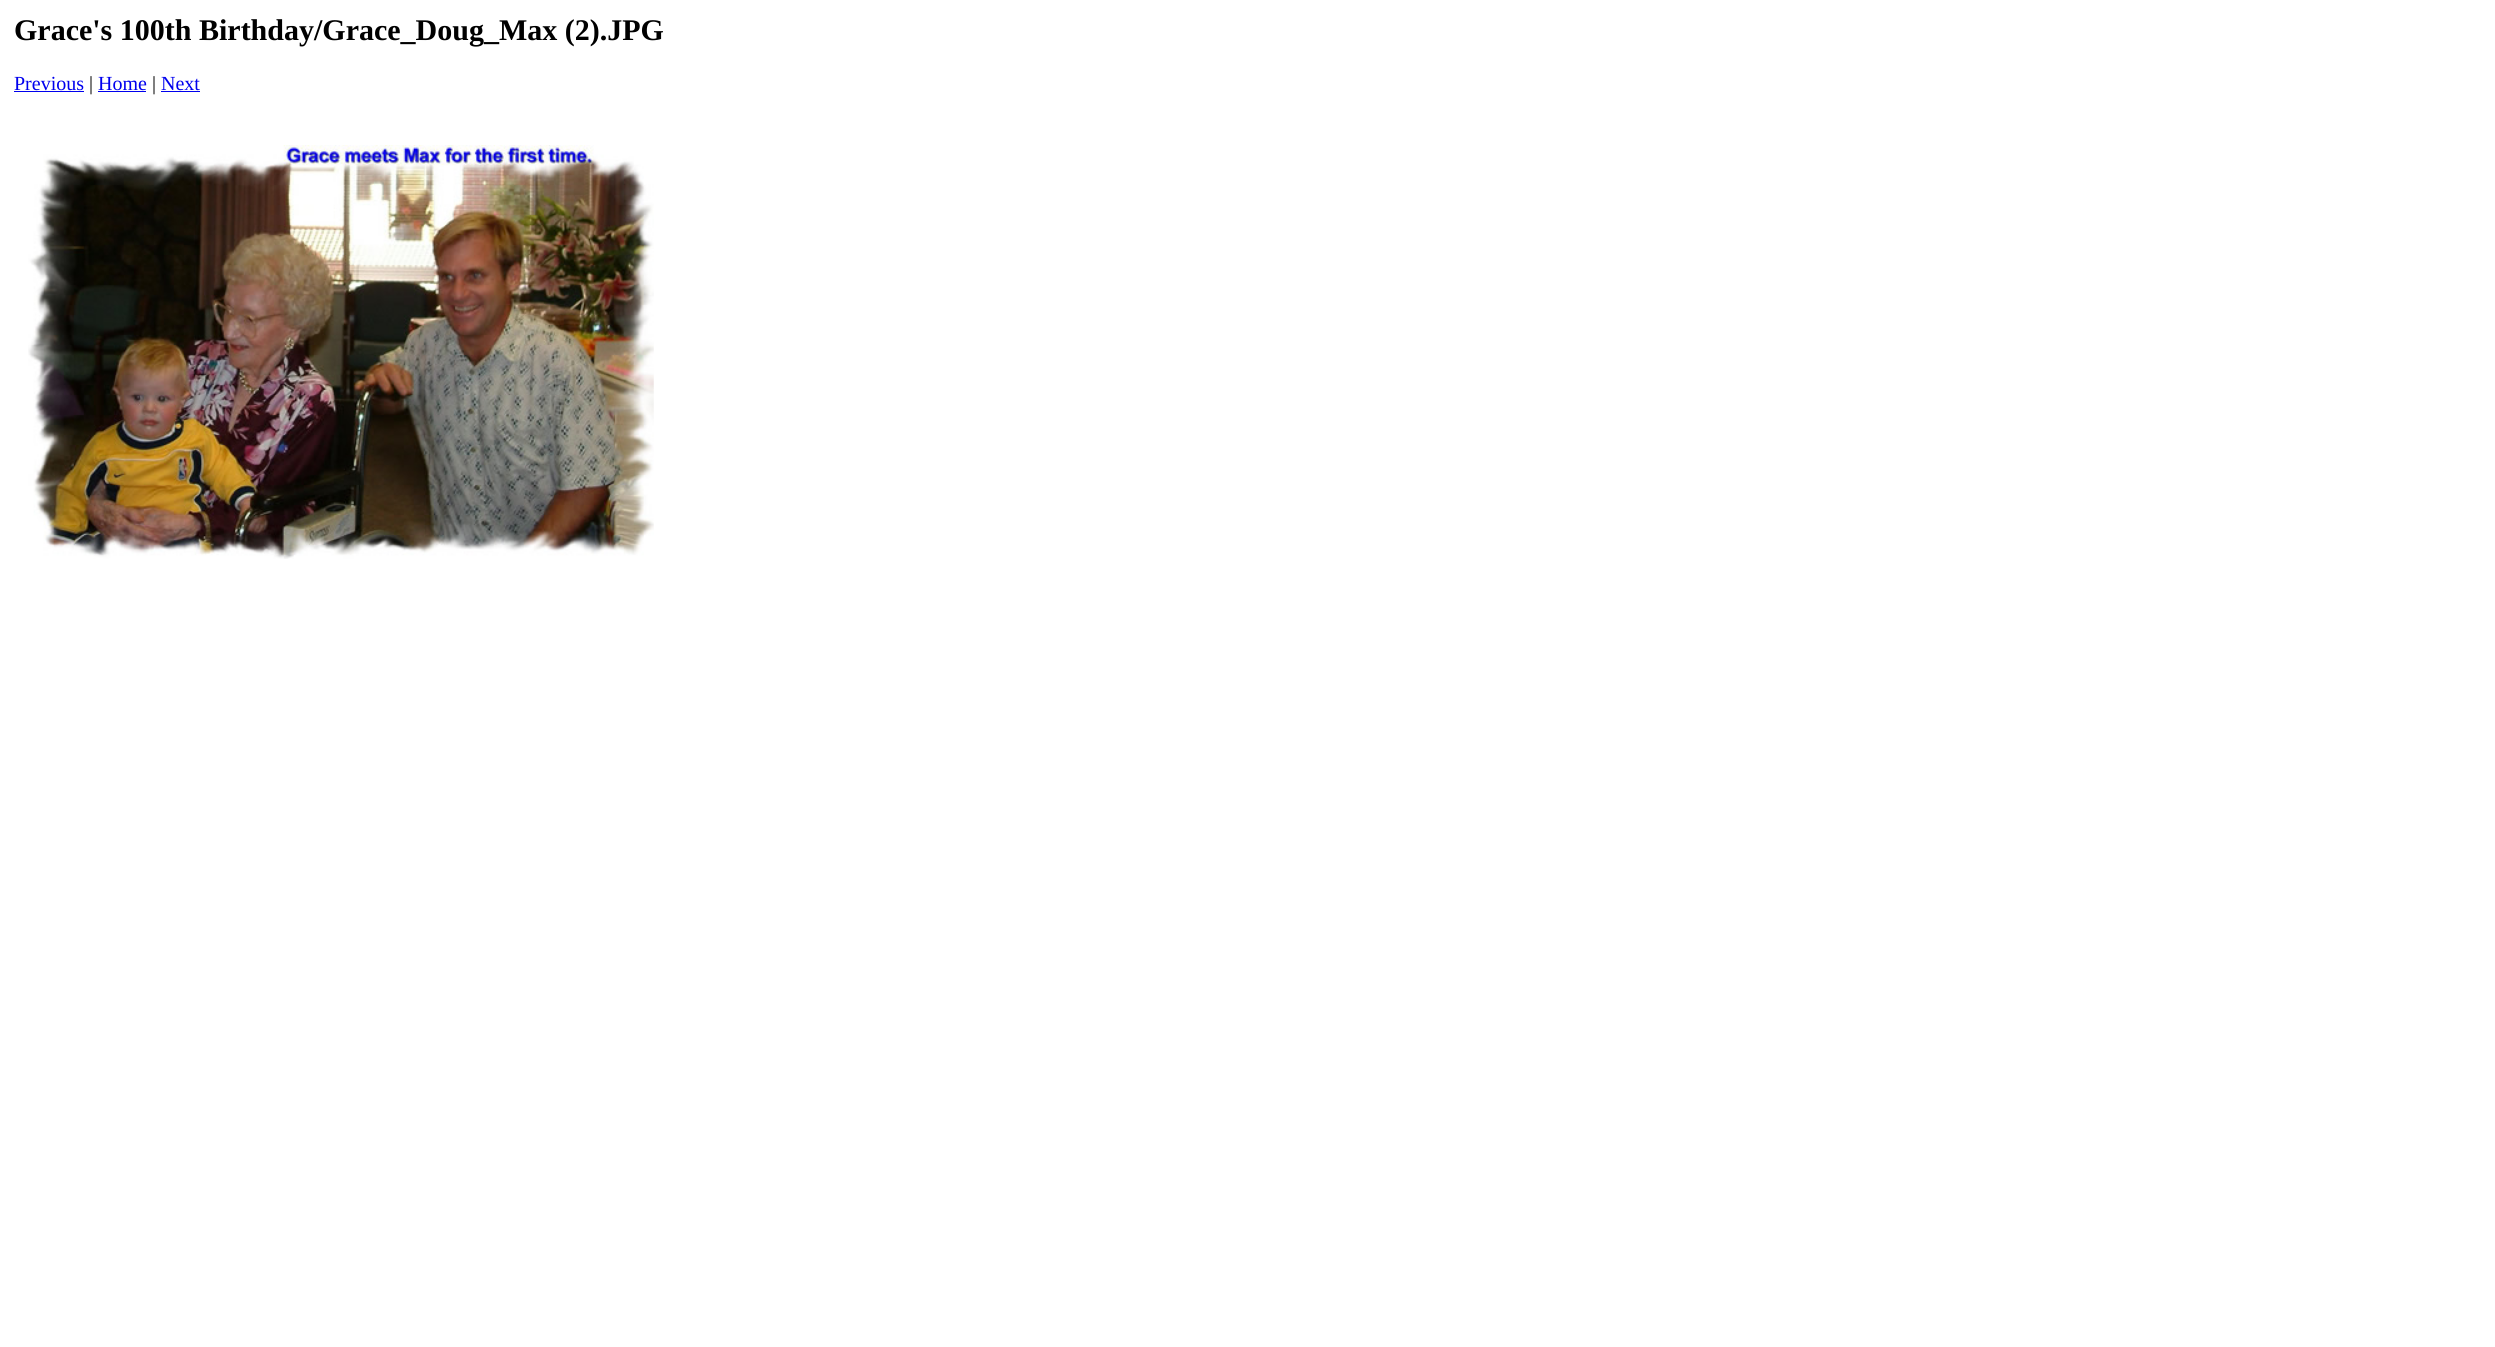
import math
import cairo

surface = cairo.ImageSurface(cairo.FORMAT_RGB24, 2495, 1347)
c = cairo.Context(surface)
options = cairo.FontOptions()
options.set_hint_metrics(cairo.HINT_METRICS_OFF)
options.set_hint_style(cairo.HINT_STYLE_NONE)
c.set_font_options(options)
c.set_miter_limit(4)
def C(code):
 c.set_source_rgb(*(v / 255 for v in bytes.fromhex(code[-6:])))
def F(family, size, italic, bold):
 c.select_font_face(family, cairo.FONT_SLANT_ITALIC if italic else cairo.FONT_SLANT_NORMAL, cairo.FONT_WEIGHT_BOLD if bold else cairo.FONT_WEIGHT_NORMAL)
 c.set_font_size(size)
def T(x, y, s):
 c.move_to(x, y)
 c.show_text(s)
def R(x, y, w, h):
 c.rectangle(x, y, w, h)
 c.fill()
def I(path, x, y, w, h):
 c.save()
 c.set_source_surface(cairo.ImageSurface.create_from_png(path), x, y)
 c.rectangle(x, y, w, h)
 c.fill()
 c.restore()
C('ffffff')
c.paint()
F('Liberation Serif',30,0,1)
C('000000')
T(14,40,'Grace\'s 100th Birthday/Grace_Doug_Max (2).JPG')
F('Liberation Serif',20,0,0)
C('0000ee')
T(14,90,'Previous')
R(14,91,70,1)
C('000000')
T(89,90,'|')
C('0000ee')
T(98,90,'Home')
R(98,91,48,1)
C('000000')
T(152,90,'|')
C('0000ee')
T(161,90,'Next')
R(161,91,39,1)
I('1.png',28,145,626,414)
surface.write_to_png('o.png')
